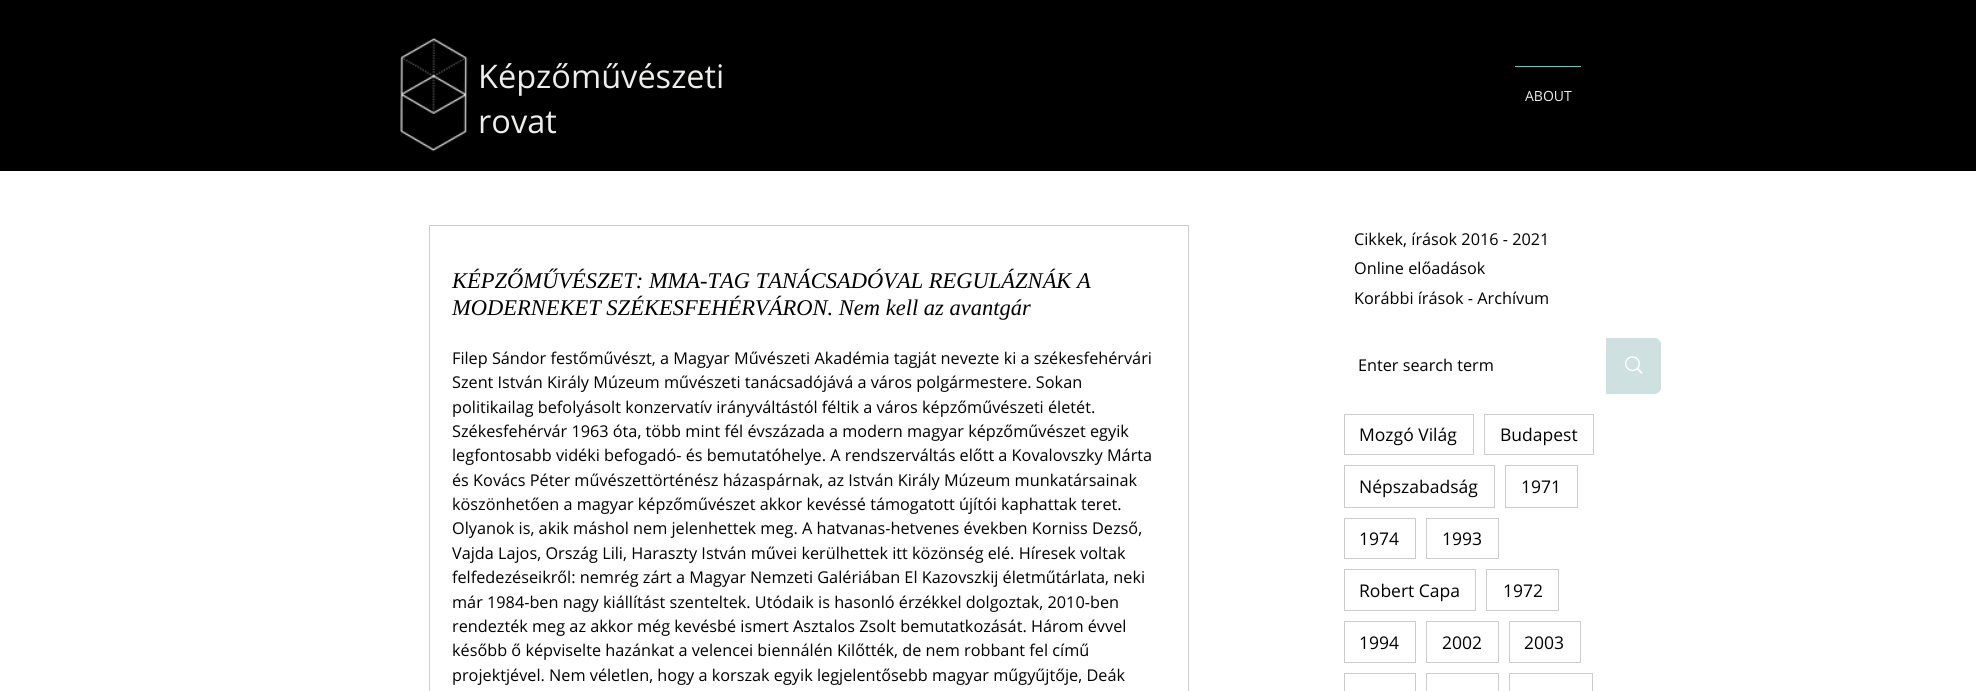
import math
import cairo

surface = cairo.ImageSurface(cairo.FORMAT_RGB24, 1976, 691)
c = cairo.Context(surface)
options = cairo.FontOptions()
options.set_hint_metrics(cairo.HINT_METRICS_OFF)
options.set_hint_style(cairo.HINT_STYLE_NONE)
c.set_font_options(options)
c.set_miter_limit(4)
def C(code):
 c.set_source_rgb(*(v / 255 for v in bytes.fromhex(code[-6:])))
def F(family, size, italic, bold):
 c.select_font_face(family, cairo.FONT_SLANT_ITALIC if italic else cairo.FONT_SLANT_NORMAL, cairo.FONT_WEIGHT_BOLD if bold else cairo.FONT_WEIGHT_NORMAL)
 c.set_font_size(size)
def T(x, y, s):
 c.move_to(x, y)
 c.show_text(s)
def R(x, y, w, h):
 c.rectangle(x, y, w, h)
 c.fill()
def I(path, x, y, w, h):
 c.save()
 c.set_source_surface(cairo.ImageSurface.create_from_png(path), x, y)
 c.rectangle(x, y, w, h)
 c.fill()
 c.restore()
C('ffffff')
c.paint()
C('000000')
R(0,0,1976,171)
I('1.png',400,38,68,114)
F('Open Sans',32.5,0,0)
C('ededec')
T(478,88,'Képzőművészeti')
T(478,133,'rovat')
C('72c1bf')
R(1515,66,66,1)
F('Open Sans',14,0,0)
C('ededec')
T(1525,101,'ABOUT')
c.rectangle(429.5,225.5,759,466)
C('cdcdc9')
c.set_line_width(1)
c.stroke()
F('Liberation Serif',22.5,1,0)
C('000000')
T(452,288,'KÉPZŐMŰVÉSZET: MMA-TAG TANÁCSADÓVAL REGULÁZNÁK A')
T(452,315,'MODERNEKET SZÉKESFEHÉRVÁRON. Nem kell az avantgár')
F('Open Sans',16.25,0,0)
T(452,364,'Filep Sándor festőművészt, a Magyar Művészeti Akadémia tagját nevezte ki a székesfehérvári')
T(452,388,'Szent István Király Múzeum művészeti tanácsadójává a város polgármestere. Sokan')
T(452,413,'politikailag befolyásolt konzervatív irányváltástól féltik a város képzőművészeti életét.')
T(452,437,'Székesfehérvár 1963 óta, több mint fél évszázada a modern magyar képzőművészet egyik')
T(452,461,'legfontosabb vidéki befogadó- és bemutatóhelye. A rendszerváltás előtt a Kovalovszky Márta')
T(452,486,'és Kovács Péter művészettörténész házaspárnak, az István Király Múzeum munkatársainak')
T(452,510,'köszönhetően a magyar képzőművészet akkor kevéssé támogatott újítói kaphattak teret.')
T(452,534,'Olyanok is, akik máshol nem jelenhettek meg. A hatvanas-hetvenes években Korniss Dezső,')
T(452,559,'Vajda Lajos, Ország Lili, Haraszty István művei kerülhettek itt közönség elé. Híresek voltak')
T(452,583,'felfedezéseikről: nemrég zárt a Magyar Nemzeti Galériában El Kazovszkij életműtárlata, neki')
T(452,608,'már 1984-ben nagy kiállítást szenteltek. Utódaik is hasonló érzékkel dolgoztak, 2010-ben')
T(452,632,'rendezték meg az akkor még kevésbé ismert Asztalos Zsolt bemutatkozását. Három évvel')
T(452,656,'később ő képviselte hazánkat a velencei biennálén Kilőtték, de nem robbant fel című')
T(452,681,'projektjével. Nem véletlen, hogy a korszak egyik legjelentősebb magyar műgyűjtője, Deák')
T(1354,245,'Cikkek, írások 2016 - 2021')
T(1354,274,'Online előadások')
T(1354,304,'Korábbi írások - Archívum')
T(1358,371,'Enter search term')
C('cfe0e0')
c.new_path()
c.move_to(1606,338)
c.line_to(1656,338)
c.curve_to(1659,339,1660,341,1661,343)
c.line_to(1661,389)
c.curve_to(1660,392,1657,394,1654,394)
c.line_to(1606,394)
c.close_path()
c.fill()
I('2.png',1625,356,18,18)
c.rectangle(1344.5,414.5,129,40)
C('cccccc')
c.stroke()
F('Open Sans',17.5,0,0)
C('000000')
T(1359,441,'Mozgó Világ')
c.rectangle(1484.5,414.5,109,40)
C('cccccc')
c.stroke()
C('000000')
T(1500,441,'Budapest')
c.rectangle(1344.5,465.5,150,42)
C('cccccc')
c.stroke()
C('000000')
T(1359,493,'Népszabadság')
c.rectangle(1505.5,465.5,72,42)
C('cccccc')
c.stroke()
C('000000')
T(1521,493,'1971')
c.rectangle(1344.5,518.5,71,40)
C('cccccc')
c.stroke()
C('000000')
T(1359,545,'1974')
c.rectangle(1426.5,518.5,72,40)
C('cccccc')
c.stroke()
C('000000')
T(1442,545,'1993')
c.rectangle(1344.5,569.5,131,41)
C('cccccc')
c.stroke()
C('000000')
T(1359,597,'Robert Capa')
c.rectangle(1486.5,569.5,72,41)
C('cccccc')
c.stroke()
C('000000')
T(1503,597,'1972')
c.rectangle(1344.5,621.5,71,41)
C('cccccc')
c.stroke()
C('000000')
T(1359,649,'1994')
c.rectangle(1426.5,621.5,72,41)
C('cccccc')
c.stroke()
C('000000')
T(1442,649,'2002')
c.rectangle(1509.5,621.5,71,41)
C('cccccc')
c.stroke()
C('000000')
T(1524,649,'2003')
c.rectangle(1344.5,673.5,71,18)
C('cccccc')
c.stroke()
c.rectangle(1426.5,673.5,72,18)
c.stroke()
c.rectangle(1509.5,673.5,83,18)
c.stroke()
surface.write_to_png('o.png')
